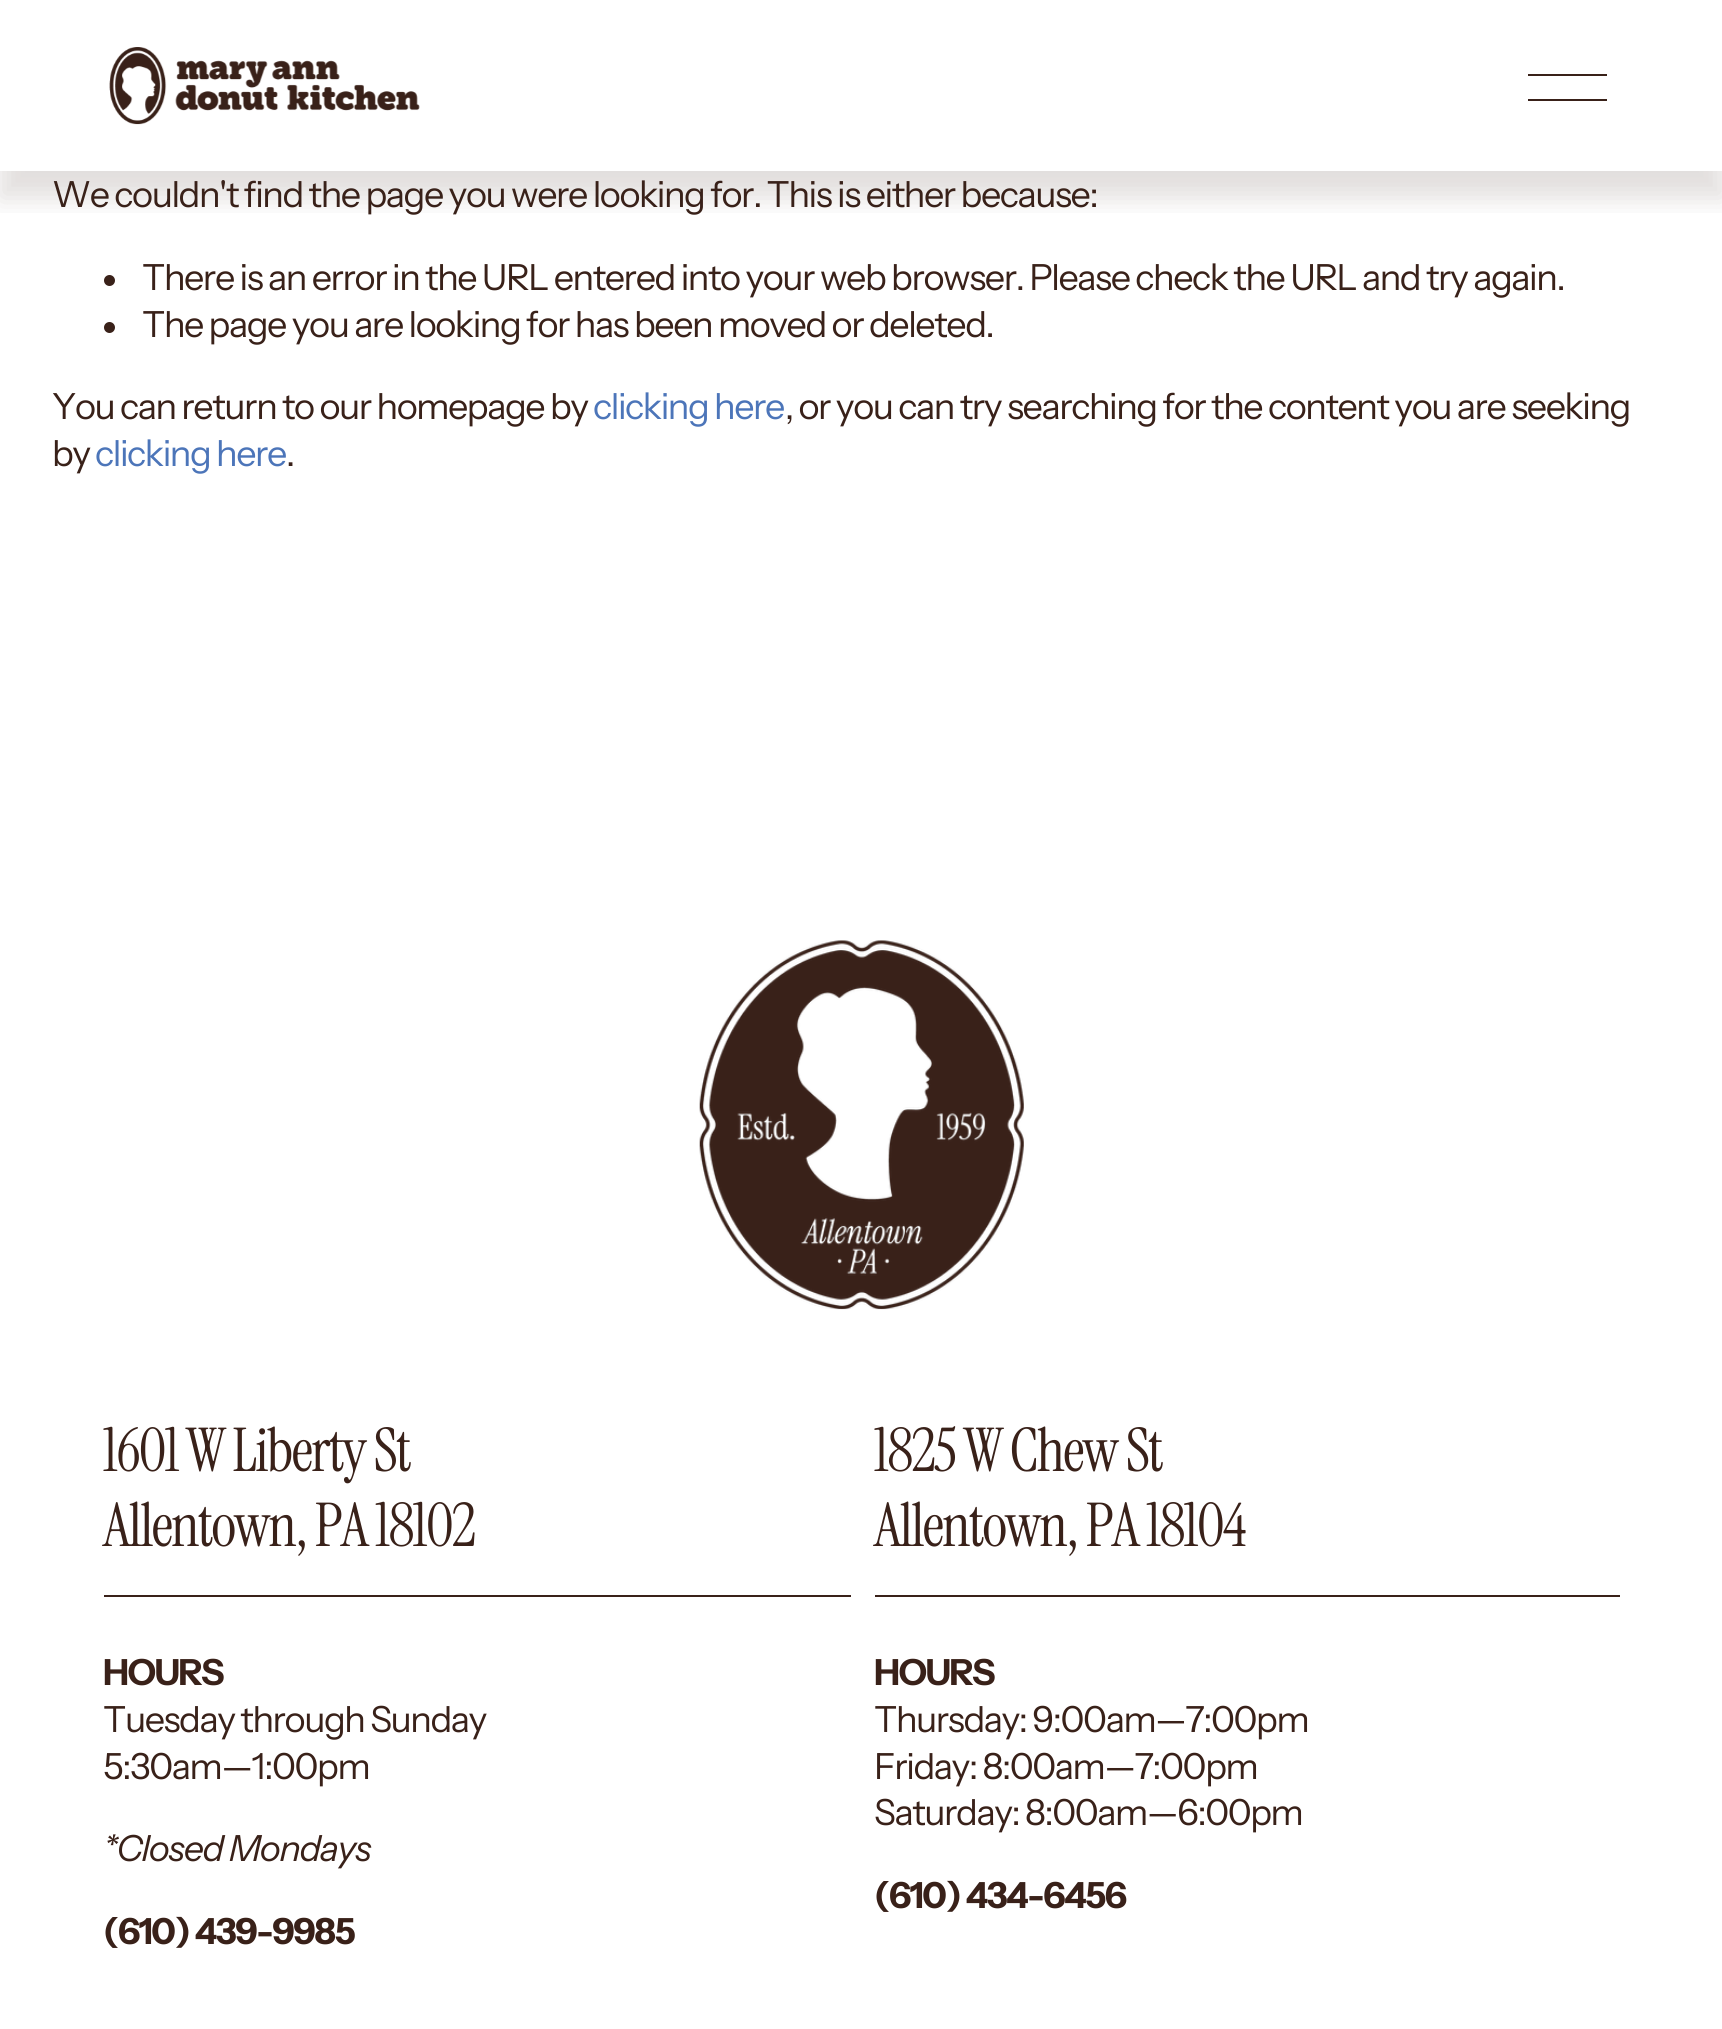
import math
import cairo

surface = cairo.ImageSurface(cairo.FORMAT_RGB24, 1722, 2029)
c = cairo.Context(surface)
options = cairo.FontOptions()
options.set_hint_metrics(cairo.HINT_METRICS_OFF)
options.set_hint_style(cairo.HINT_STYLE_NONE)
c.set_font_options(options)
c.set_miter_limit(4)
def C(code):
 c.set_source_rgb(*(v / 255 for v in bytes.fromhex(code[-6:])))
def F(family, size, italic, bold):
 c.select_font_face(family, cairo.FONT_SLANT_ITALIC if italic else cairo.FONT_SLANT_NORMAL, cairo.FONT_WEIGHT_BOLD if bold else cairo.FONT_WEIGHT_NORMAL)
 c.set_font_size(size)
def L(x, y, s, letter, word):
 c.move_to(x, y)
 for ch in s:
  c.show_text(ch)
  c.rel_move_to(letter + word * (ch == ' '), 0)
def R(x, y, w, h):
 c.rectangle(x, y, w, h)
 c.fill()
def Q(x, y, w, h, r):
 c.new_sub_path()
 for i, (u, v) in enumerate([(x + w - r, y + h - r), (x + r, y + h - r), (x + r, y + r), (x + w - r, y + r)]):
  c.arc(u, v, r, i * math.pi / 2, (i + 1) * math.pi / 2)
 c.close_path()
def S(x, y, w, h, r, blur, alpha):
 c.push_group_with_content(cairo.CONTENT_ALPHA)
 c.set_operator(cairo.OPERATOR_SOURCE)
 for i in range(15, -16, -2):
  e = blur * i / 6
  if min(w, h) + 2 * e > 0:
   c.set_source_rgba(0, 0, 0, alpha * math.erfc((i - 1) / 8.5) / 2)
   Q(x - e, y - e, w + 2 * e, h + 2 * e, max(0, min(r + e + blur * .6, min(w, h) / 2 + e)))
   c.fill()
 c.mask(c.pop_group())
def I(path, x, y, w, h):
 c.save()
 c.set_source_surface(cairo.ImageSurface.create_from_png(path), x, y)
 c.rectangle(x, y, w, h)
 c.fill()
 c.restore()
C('ffffff')
c.paint()
c.save()
c.rectangle(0,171,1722,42)
c.clip()
C('392119')
S(0,27,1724,171,0,13.5,.15)
c.restore()
I('1.png',109,47,311,78)
C('392119')
R(1528,74,79,2)
R(1528,99,79,2)
F('Instrument Sans',36,0,0)
L(52,207,'We couldn\'t find the page you were looking for. This is either because:',-1.45,0)
c.new_path()
c.arc(109.5,280.5,5.5,0,2 * math.pi)
c.fill()
L(142,290,'There is an error in the URL entered into your web browser. Please check the URL and try again.',-1.45,0)
c.new_path()
c.arc(109.5,327.5,5.5,0,2 * math.pi)
c.fill()
L(142,337,'The page you are looking for has been moved or deleted.',-1.45,0)
L(52,419,'You can return to our homepage by',-1.45,0)
C('4c75b9')
L(593,419,'clicking here',-1.45,0)
C('392119')
L(785,419,', or you can try searching for the content you are seeking',-1.45,0)
L(52,466,'by',-1.45,0)
C('4c75b9')
L(95,466,'clicking here',-1.45,0)
C('392119')
L(286,466,'.',-1.45,0)
I('2.png',699,940,325,370)
F('Instrument Serif',60.25,0,0)
L(103,1471,'1601 W Liberty St',-1.8,0)
L(103,1546,'Allentown, PA 18102',-1.8,0)
L(874,1471,'1825 W Chew St',-1.8,0)
L(874,1546,'Allentown, PA 18104',-1.8,0)
R(104,1595,747,2)
R(875,1595,745,2)
F('Instrument Sans',36,0,1)
L(103,1685,'HOURS',-1.45,0)
F('Instrument Sans',36,0,0)
L(103,1732,'Tuesday through Sunday',-1.45,0)
L(103,1779,'5:30am—1:00pm',-1.45,0)
F('Instrument Sans',36,1,0)
L(103,1861,'*Closed Mondays',-1.45,0)
F('Instrument Sans',36,0,1)
L(103,1944,'(610) 439-9985',-1.45,0)
L(874,1685,'HOURS',-1.45,0)
F('Instrument Sans',36,0,0)
L(874,1732,'Thursday: 9:00am—7:00pm',-1.45,0)
L(874,1779,'Friday: 8:00am—7:00pm',-1.45,0)
L(874,1825,'Saturday: 8:00am—6:00pm',-1.45,0)
F('Instrument Sans',36,0,1)
L(874,1908,'(610) 434-6456',-1.45,0)
surface.write_to_png('o.png')
